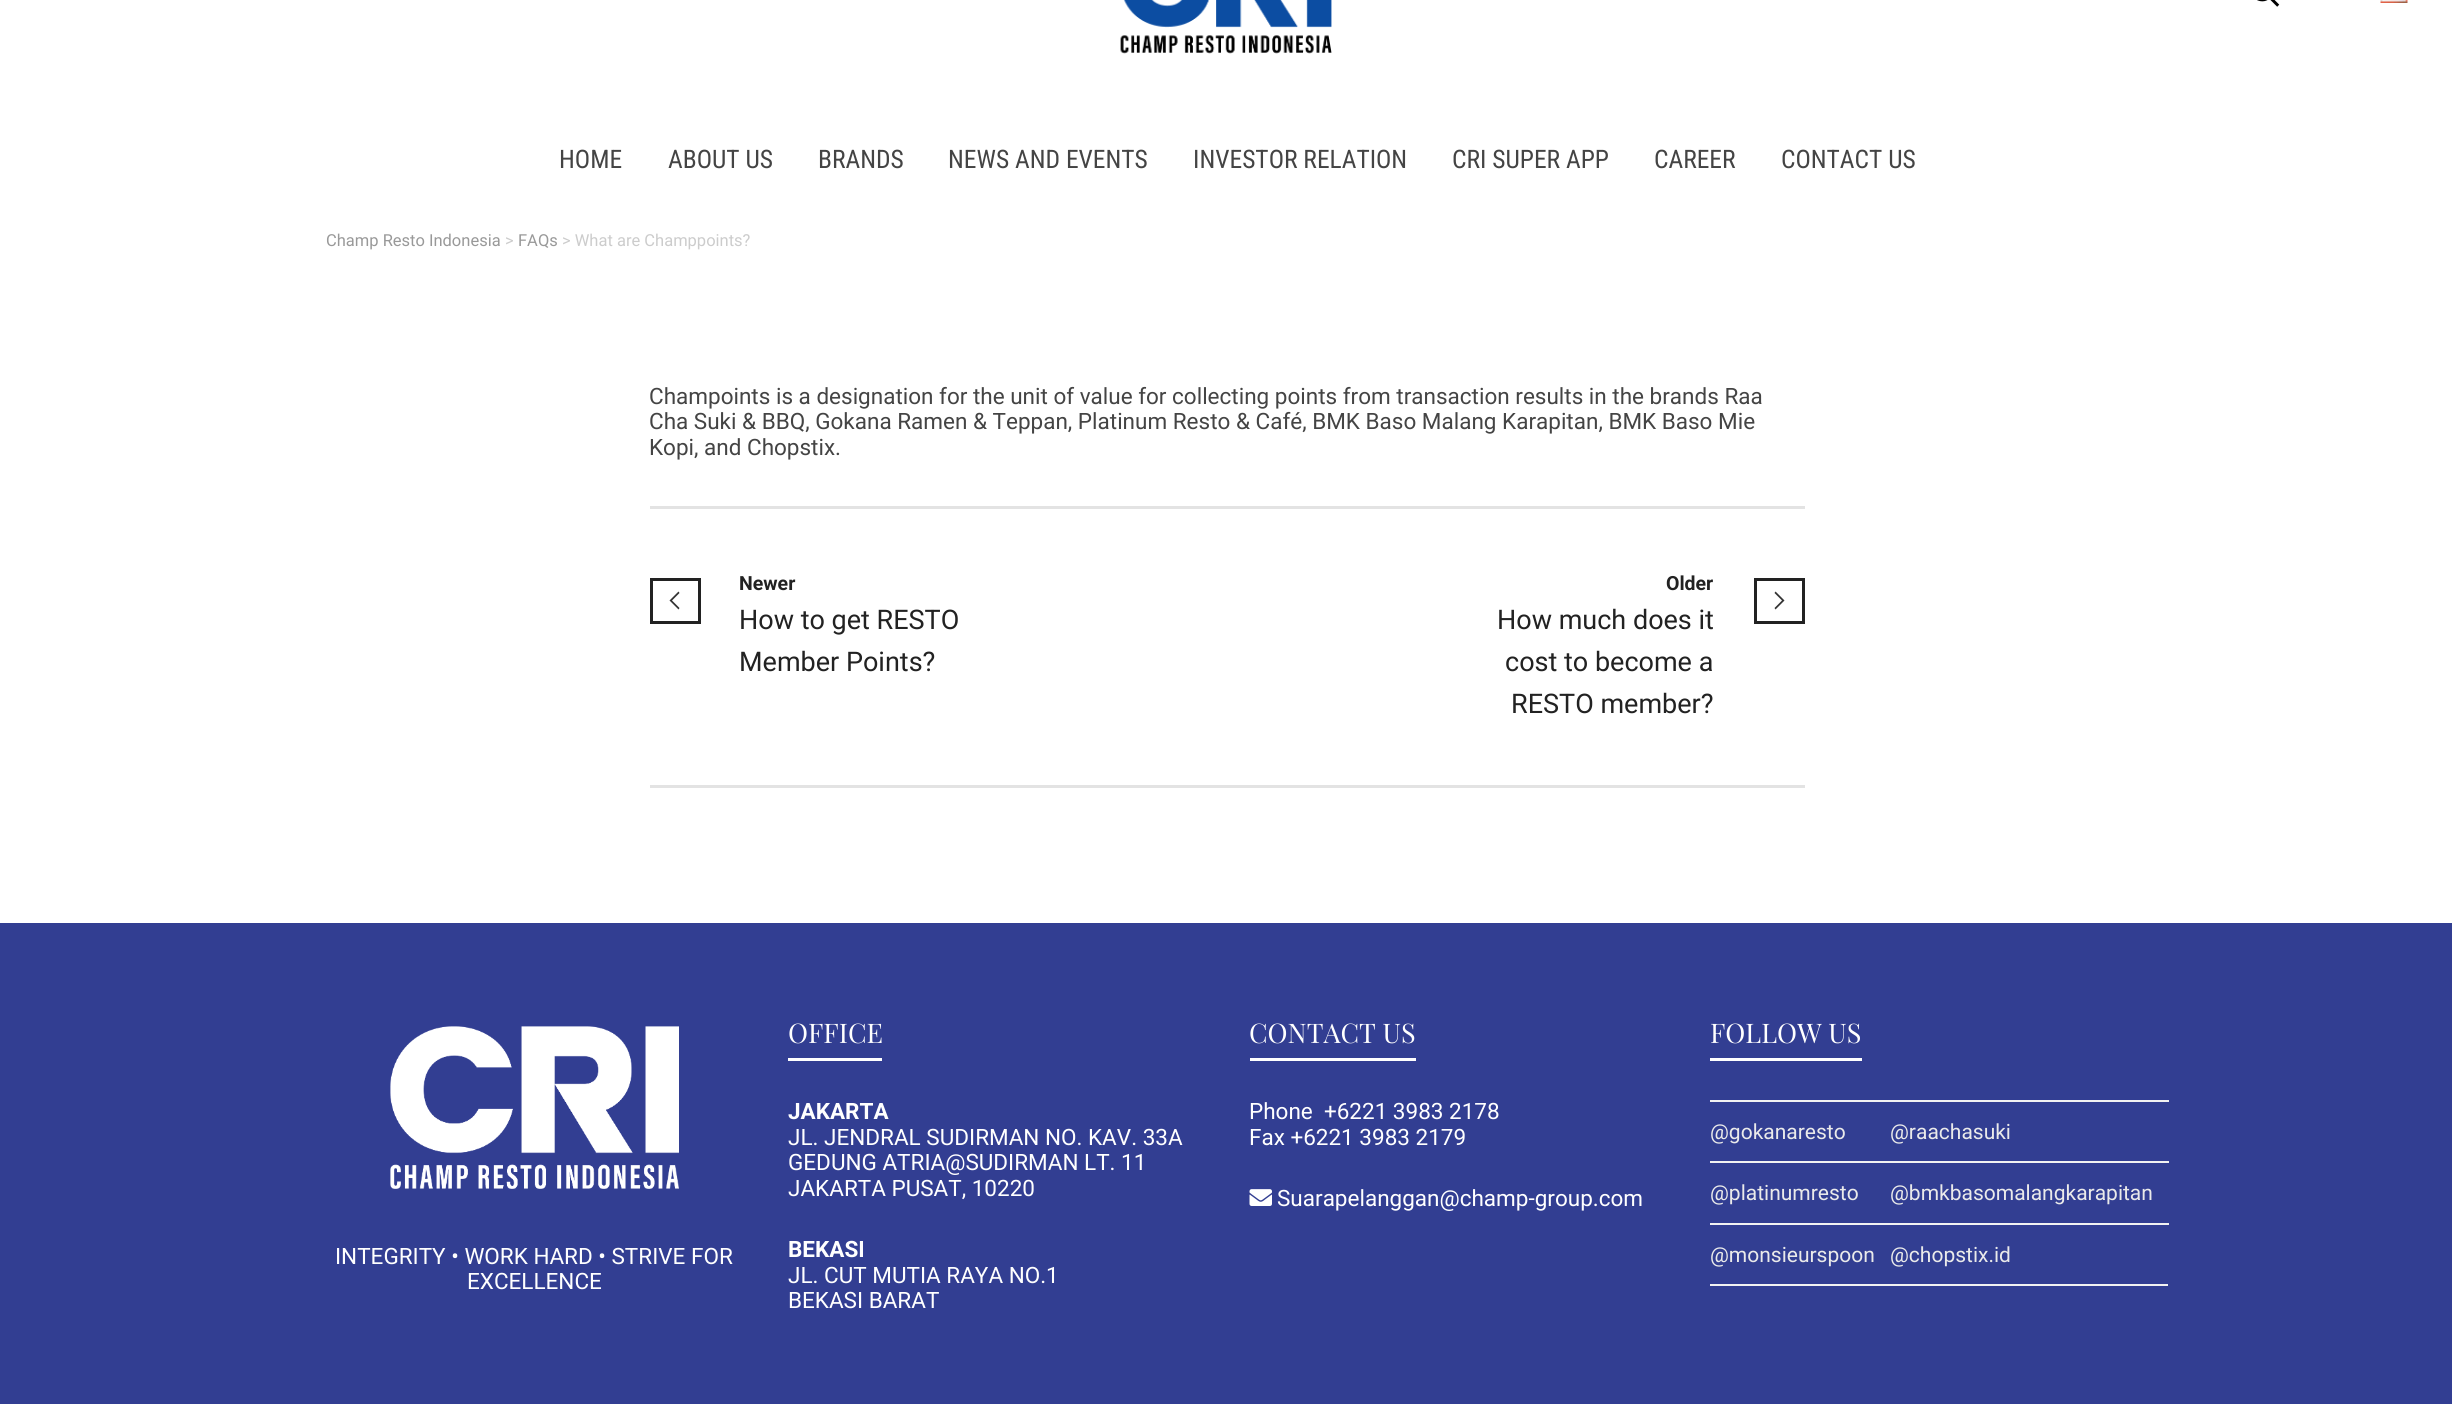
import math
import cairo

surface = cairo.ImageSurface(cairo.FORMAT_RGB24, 2452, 1417)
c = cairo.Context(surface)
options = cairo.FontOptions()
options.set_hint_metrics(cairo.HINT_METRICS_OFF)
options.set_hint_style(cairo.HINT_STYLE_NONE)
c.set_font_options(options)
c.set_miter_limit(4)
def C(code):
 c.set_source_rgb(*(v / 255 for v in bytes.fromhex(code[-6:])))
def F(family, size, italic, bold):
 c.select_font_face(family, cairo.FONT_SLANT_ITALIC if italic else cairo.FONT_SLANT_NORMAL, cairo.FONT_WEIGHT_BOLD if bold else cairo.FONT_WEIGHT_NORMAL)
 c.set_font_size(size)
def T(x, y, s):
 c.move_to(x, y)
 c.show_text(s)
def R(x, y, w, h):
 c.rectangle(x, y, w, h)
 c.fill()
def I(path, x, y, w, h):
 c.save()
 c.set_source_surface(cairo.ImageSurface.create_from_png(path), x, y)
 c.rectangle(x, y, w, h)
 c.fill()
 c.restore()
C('ffffff')
c.paint()
I('1.png',1120,0,212,54)
I('2.png',2257,0,23,7)
I('3.png',2380,0,28,3)
F('Roboto Condensed',25.5,0,0)
C('444444')
T(559,168,'HOME')
T(668,168,'ABOUT US')
T(818,168,'BRANDS')
T(948,168,'NEWS AND EVENTS')
T(1193,168,'INVESTOR RELATION')
T(1452,168,'CRI SUPER APP')
T(1654,168,'CAREER')
T(1781,168,'CONTACT US')
F('Roboto',16.5,0,0)
C('999999')
T(326,246,'Champ Resto Indonesia')
C('cccccc')
T(505,246,'>')
C('999999')
T(518,246,'FAQs')
C('cccccc')
T(562,246,'> What are Champpoints?')
F('Roboto',22.5,0,0)
C('444444')
T(649,404,'Champoints is a designation for the unit of value for collecting points from transaction results in the brands Raa')
T(649,429,'Cha Suki & BBQ, Gokana Ramen & Teppan, Platinum Resto & Café, BMK Baso Malang Karapitan, BMK Baso Mie')
T(649,455,'Kopi, and Chopstix.')
C('e3e3e3')
R(650,506,1155,3)
R(650,785,1155,3)
c.rectangle(651.5,579.5,48,43)
C('222222')
c.set_line_width(3)
c.stroke()
C('333333')
c.new_path()
c.move_to(678.5,591.5)
c.line_to(679.5,593)
c.line_to(672,600.5)
c.line_to(679.5,608)
c.line_to(678.5,609.5)
c.line_to(669.5,600.5)
c.close_path()
c.fill()
F('Roboto',19.5,0,1)
C('222222')
T(739,590,'Newer')
F('Roboto',27,0,0)
T(739,629,'How to get RESTO')
T(739,671,'Member Points?')
F('Roboto',19.5,0,1)
T(1666,590,'Older')
c.rectangle(1755.5,579.5,48,43)
c.stroke()
C('333333')
c.new_path()
c.move_to(1775.5,591.5)
c.line_to(1774.5,593)
c.line_to(1782,600.5)
c.line_to(1774.5,608)
c.line_to(1775.5,609.5)
c.line_to(1784.5,600.5)
c.close_path()
c.fill()
F('Roboto',27,0,0)
C('222222')
T(1497,629,'How much does it')
T(1505,671,'cost to become a')
T(1511,713,'RESTO member?')
C('323e92')
R(0,923,2452,481)
I('4.png',390,1026,289,163)
F('Roboto',22.5,0,0)
C('ffffff')
T(335,1264,'INTEGRITY • WORK HARD • STRIVE FOR')
T(467,1289,'EXCELLENCE')
R(788,1058,94,3)
F('Playfair Display',27,0,0)
T(788,1043,'OFFICE')
F('Roboto',22.5,0,1)
T(788,1119,'JAKARTA')
F('Roboto',22.5,0,0)
T(788,1145,'JL. JENDRAL SUDIRMAN NO. KAV. 33A')
T(788,1170,'GEDUNG ATRIA@SUDIRMAN LT. 11')
T(788,1196,'JAKARTA PUSAT, 10220')
F('Roboto',22.5,0,1)
T(788,1257,'BEKASI')
F('Roboto',22.5,0,0)
T(788,1283,'JL. CUT MUTIA RAYA NO.1')
T(788,1308,'BEKASI BARAT')
R(1250,1058,166,3)
F('Playfair Display',27,0,0)
T(1249,1043,'CONTACT US')
F('Roboto',22.5,0,0)
T(1249,1119,'Phone  +6221 3983 2178')
T(1249,1145,'Fax +6221 3983 2179')
I('5.png',1249,1189,23,17)
T(1277,1206,'Suarapelanggan@champ-group.com')
R(1710,1058,152,3)
F('Playfair Display',27,0,0)
T(1710,1043,'FOLLOW US')
C('f2f2f2')
R(1710,1284,458,2)
F('Roboto',21,0,0)
C('eaeaea')
T(1710,1139,'@gokanaresto')
C('f2f2f2')
R(1710,1100,459,2)
C('eaeaea')
T(1890,1139,'@raachasuki')
T(1710,1200,'@platinumresto')
C('f2f2f2')
R(1710,1161,459,2)
C('eaeaea')
T(1890,1200,'@bmkbasomalangkarapitan')
T(1710,1262,'@monsieurspoon')
C('f2f2f2')
R(1710,1223,459,2)
C('eaeaea')
T(1890,1262,'@chopstix.id')
surface.write_to_png('o.png')
